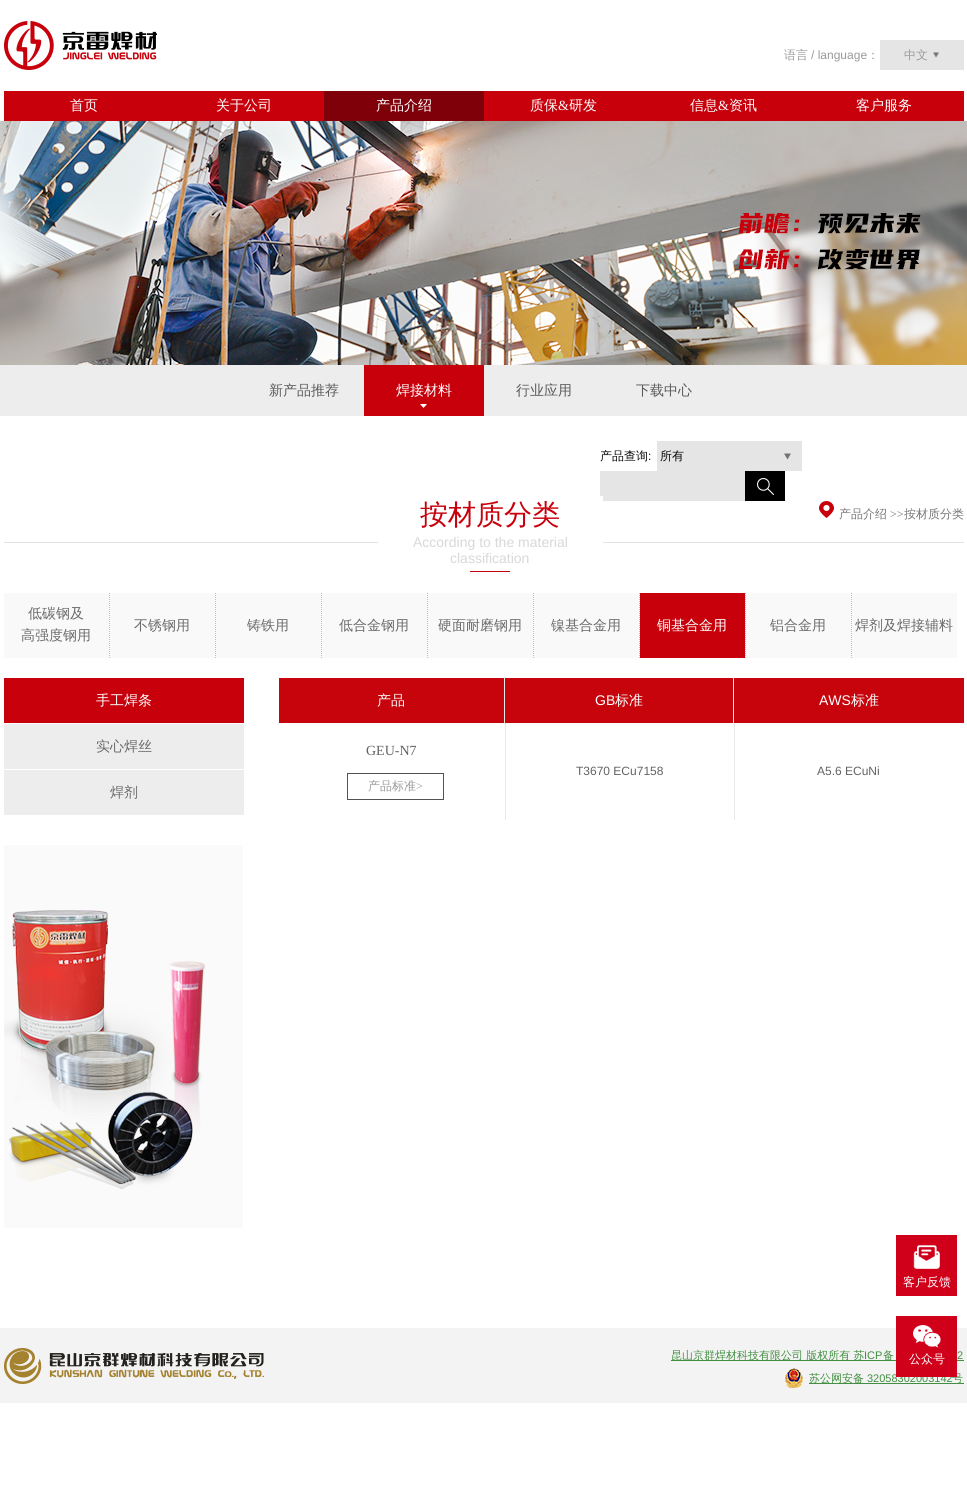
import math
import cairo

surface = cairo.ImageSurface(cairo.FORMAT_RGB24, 967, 1507)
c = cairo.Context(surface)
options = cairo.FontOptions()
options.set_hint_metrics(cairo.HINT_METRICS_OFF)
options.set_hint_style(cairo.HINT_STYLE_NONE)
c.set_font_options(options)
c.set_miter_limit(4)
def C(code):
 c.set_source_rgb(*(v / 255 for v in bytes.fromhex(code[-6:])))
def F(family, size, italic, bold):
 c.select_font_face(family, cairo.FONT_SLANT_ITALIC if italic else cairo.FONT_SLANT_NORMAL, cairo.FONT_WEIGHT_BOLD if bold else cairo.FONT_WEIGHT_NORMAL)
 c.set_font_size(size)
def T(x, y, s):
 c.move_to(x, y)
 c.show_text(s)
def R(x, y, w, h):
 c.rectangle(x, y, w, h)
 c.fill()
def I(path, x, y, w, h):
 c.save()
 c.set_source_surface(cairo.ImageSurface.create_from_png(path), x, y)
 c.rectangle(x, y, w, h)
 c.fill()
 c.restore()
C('ffffff')
c.paint()
I('1.png',4,21,153,49)
F('WenQuanYi Zen Hei Medium',12,0,0)
C('9a9a9a')
T(784,59,'语言')
F('Liberation Sans',12,0,0)
T(811,59,'/ language')
F('WenQuanYi Zen Hei Medium',12,0,0)
T(867,59,'：')
C('e5e5e5')
R(880,40,84,30)
C('9a9a9a')
T(904,59,'中文')
I('2.png',933,52,6,6)
C('c7000b')
R(4,91,960,30)
F('WenQuanYi Zen Hei Medium',14,0,0)
C('ffffff')
T(70,110,'首页')
T(216,110,'关于公司')
C('7f0008')
R(324,91,160,30)
C('ffffff')
T(376,110,'产品介绍')
T(530,110,'质保')
F('Liberation Serif',14,0,0)
T(558,110,'&')
F('WenQuanYi Zen Hei Medium',14,0,0)
T(569,110,'研发')
T(690,110,'信息')
F('Liberation Serif',14,0,0)
T(718,110,'&')
F('WenQuanYi Zen Hei Medium',14,0,0)
T(729,110,'资讯')
T(856,110,'客户服务')
I('3.png',0,121,967,244)
C('ededed')
R(0,365,967,51)
C('5a5a5a')
T(269,395,'新产品推荐')
C('c7000b')
R(364,365,120,51)
I('4.png',420,404,7,4)
C('ffffff')
T(396,395,'焊接材料')
C('5a5a5a')
T(516,395,'行业应用')
T(636,395,'下载中心')
F('WenQuanYi Zen Hei Medium',12,0,0)
C('070707')
T(600,460,'产品查询')
F('Liberation Sans',12,0,0)
T(648,460,':')
C('e5e5e5')
R(657,441,145,30)
I('5.png',784,453,7,7)
F('WenQuanYi Zen Hei Medium',12,0,0)
C('070707')
T(660,460,'所有')
C('e5e5e5')
R(600,471,145,30)
C('000000')
R(745,471,40,30)
I('6.png',757,478,17,17)
C('e3e3e3')
R(4,542,960,1)
C('ffffff')
R(378,496,225,47)
F('WenQuanYi Zen Hei Medium',28,0,0)
C('c7000b')
T(420,524,'按材质分类')
F('Liberation Sans',14,0,0)
C('d8d8d8')
T(413,547,'According to the material')
T(450,563,'classification')
C('c7000b')
R(470,571,40,1)
I('7.png',819,501,15,17)
F('WenQuanYi Zen Hei Medium',12,0,0)
C('787878')
T(839,518,'产品介绍')
F('Liberation Serif',12,0,0)
T(890,518,'>>')
F('WenQuanYi Zen Hei Medium',12,0,0)
T(904,518,'按材质分类')
c.new_path()
c.move_to(109.5,593)
c.line_to(109.5,658)
C('bcbcbc')
c.set_line_width(1)
c.set_dash([1,1])
c.stroke()
C('f9f9f9')
R(4,593,105,65)
F('WenQuanYi Zen Hei Medium',14,0,0)
C('6a6a6a')
T(28,618,'低碳钢及')
T(21,640,'高强度钢用')
c.new_path()
c.move_to(215.5,593)
c.line_to(215.5,658)
C('bcbcbc')
c.stroke()
C('f9f9f9')
R(110,593,105,65)
C('6a6a6a')
T(134,630,'不锈钢用')
c.new_path()
c.move_to(321.5,593)
c.line_to(321.5,658)
C('bcbcbc')
c.stroke()
C('f9f9f9')
R(216,593,105,65)
C('6a6a6a')
T(247,630,'铸铁用')
c.new_path()
c.move_to(427.5,593)
c.line_to(427.5,658)
C('bcbcbc')
c.stroke()
C('f9f9f9')
R(322,593,105,65)
C('6a6a6a')
T(339,630,'低合金钢用')
c.new_path()
c.move_to(533.5,593)
c.line_to(533.5,658)
C('bcbcbc')
c.stroke()
C('f9f9f9')
R(428,593,105,65)
C('6a6a6a')
T(438,630,'硬面耐磨钢用')
c.new_path()
c.move_to(639.5,593)
c.line_to(639.5,658)
C('bcbcbc')
c.stroke()
C('f9f9f9')
R(534,593,105,65)
C('6a6a6a')
T(551,630,'镍基合金用')
c.new_path()
c.move_to(745.5,593)
c.line_to(745.5,658)
C('bcbcbc')
c.stroke()
C('c7000b')
R(640,593,105,65)
C('ffffff')
T(657,630,'铜基合金用')
c.new_path()
c.move_to(851.5,593)
c.line_to(851.5,658)
C('bcbcbc')
c.stroke()
C('f9f9f9')
R(746,593,105,65)
C('6a6a6a')
T(770,630,'铝合金用')
C('f9f9f9')
R(852,593,105,65)
C('6a6a6a')
T(855,630,'焊剂及焊接辅料')
C('c7000b')
R(4,678,240,45)
C('ffffff')
T(96,705,'手工焊条')
C('ededed')
R(4,724,240,45)
C('6a6a6a')
T(96,751,'实心焊丝')
C('ededed')
R(4,770,240,45)
C('6a6a6a')
T(110,797,'焊剂')
I('8.png',4,845,239,383)
C('c7040b')
R(279,678,225,45)
C('ffffff')
T(377,705,'产品')
C('c7040b')
R(505,678,228,45)
C('e9e9e9')
R(733,678,1,45)
R(504,678,1,45)
F('Liberation Sans',14,0,0)
C('ffffff')
T(595,705,'GB')
F('WenQuanYi Zen Hei Medium',14,0,0)
T(615,705,'标准')
C('c7040b')
R(734,678,230,45)
F('Liberation Sans',14,0,0)
C('ffffff')
T(819,705,'AWS')
F('WenQuanYi Zen Hei Medium',14,0,0)
T(851,705,'标准')
F('Liberation Serif',14,0,0)
C('626262')
T(366,755,'GEU-N7')
c.rectangle(347.5,773.5,96,26)
C('535353')
c.set_dash([])
c.stroke()
F('WenQuanYi Zen Hei Medium',12,0,0)
C('9a9a9a')
T(368,790,'产品标准')
F('Liberation Serif',12,0,0)
T(416,790,'>')
C('e9e9e9')
R(734,723,1,97)
R(505,723,1,97)
F('Liberation Sans',12,0,0)
C('626262')
T(576,775,'T3670 ECu7158')
T(817,775,'A5.6 ECuNi')
C('d0001a')
R(896,1235,61,61)
I('9.png',913,1245,27,24)
F('WenQuanYi Zen Hei Medium',12,0,0)
C('ffffff')
T(903,1286,'客户反馈')
C('f3f3f3')
R(0,1328,967,75)
C('438f42')
R(671,1360,293,1)
F('Liberation Sans',11,0,0)
T(867,1382,'32058302003142')
R(809,1383,155,1)
F('WenQuanYi Zen Hei Medium',11,0,0)
T(952,1382,'号')
C('d0001a')
R(896,1316,61,61)
I('10.png',913,1325,28,23)
F('WenQuanYi Zen Hei Medium',12,0,0)
C('ffffff')
T(909,1363,'公众号')
I('11.png',4,1348,260,36)
F('WenQuanYi Zen Hei Medium',11,0,0)
C('438f42')
T(671,1359,'昆山京群焊材科技有限公司 版权所有 苏')
F('Liberation Sans',11,0,0)
T(864,1359,'ICP')
F('WenQuanYi Zen Hei Medium',11,0,0)
T(883,1359,'备')
F('Liberation Sans',11,0,0)
T(957,1359,'2')
I('12.png',785,1368,18,20)
F('WenQuanYi Zen Hei Medium',11,0,0)
T(809,1382,'苏公网安备')
surface.write_to_png('o.png')
